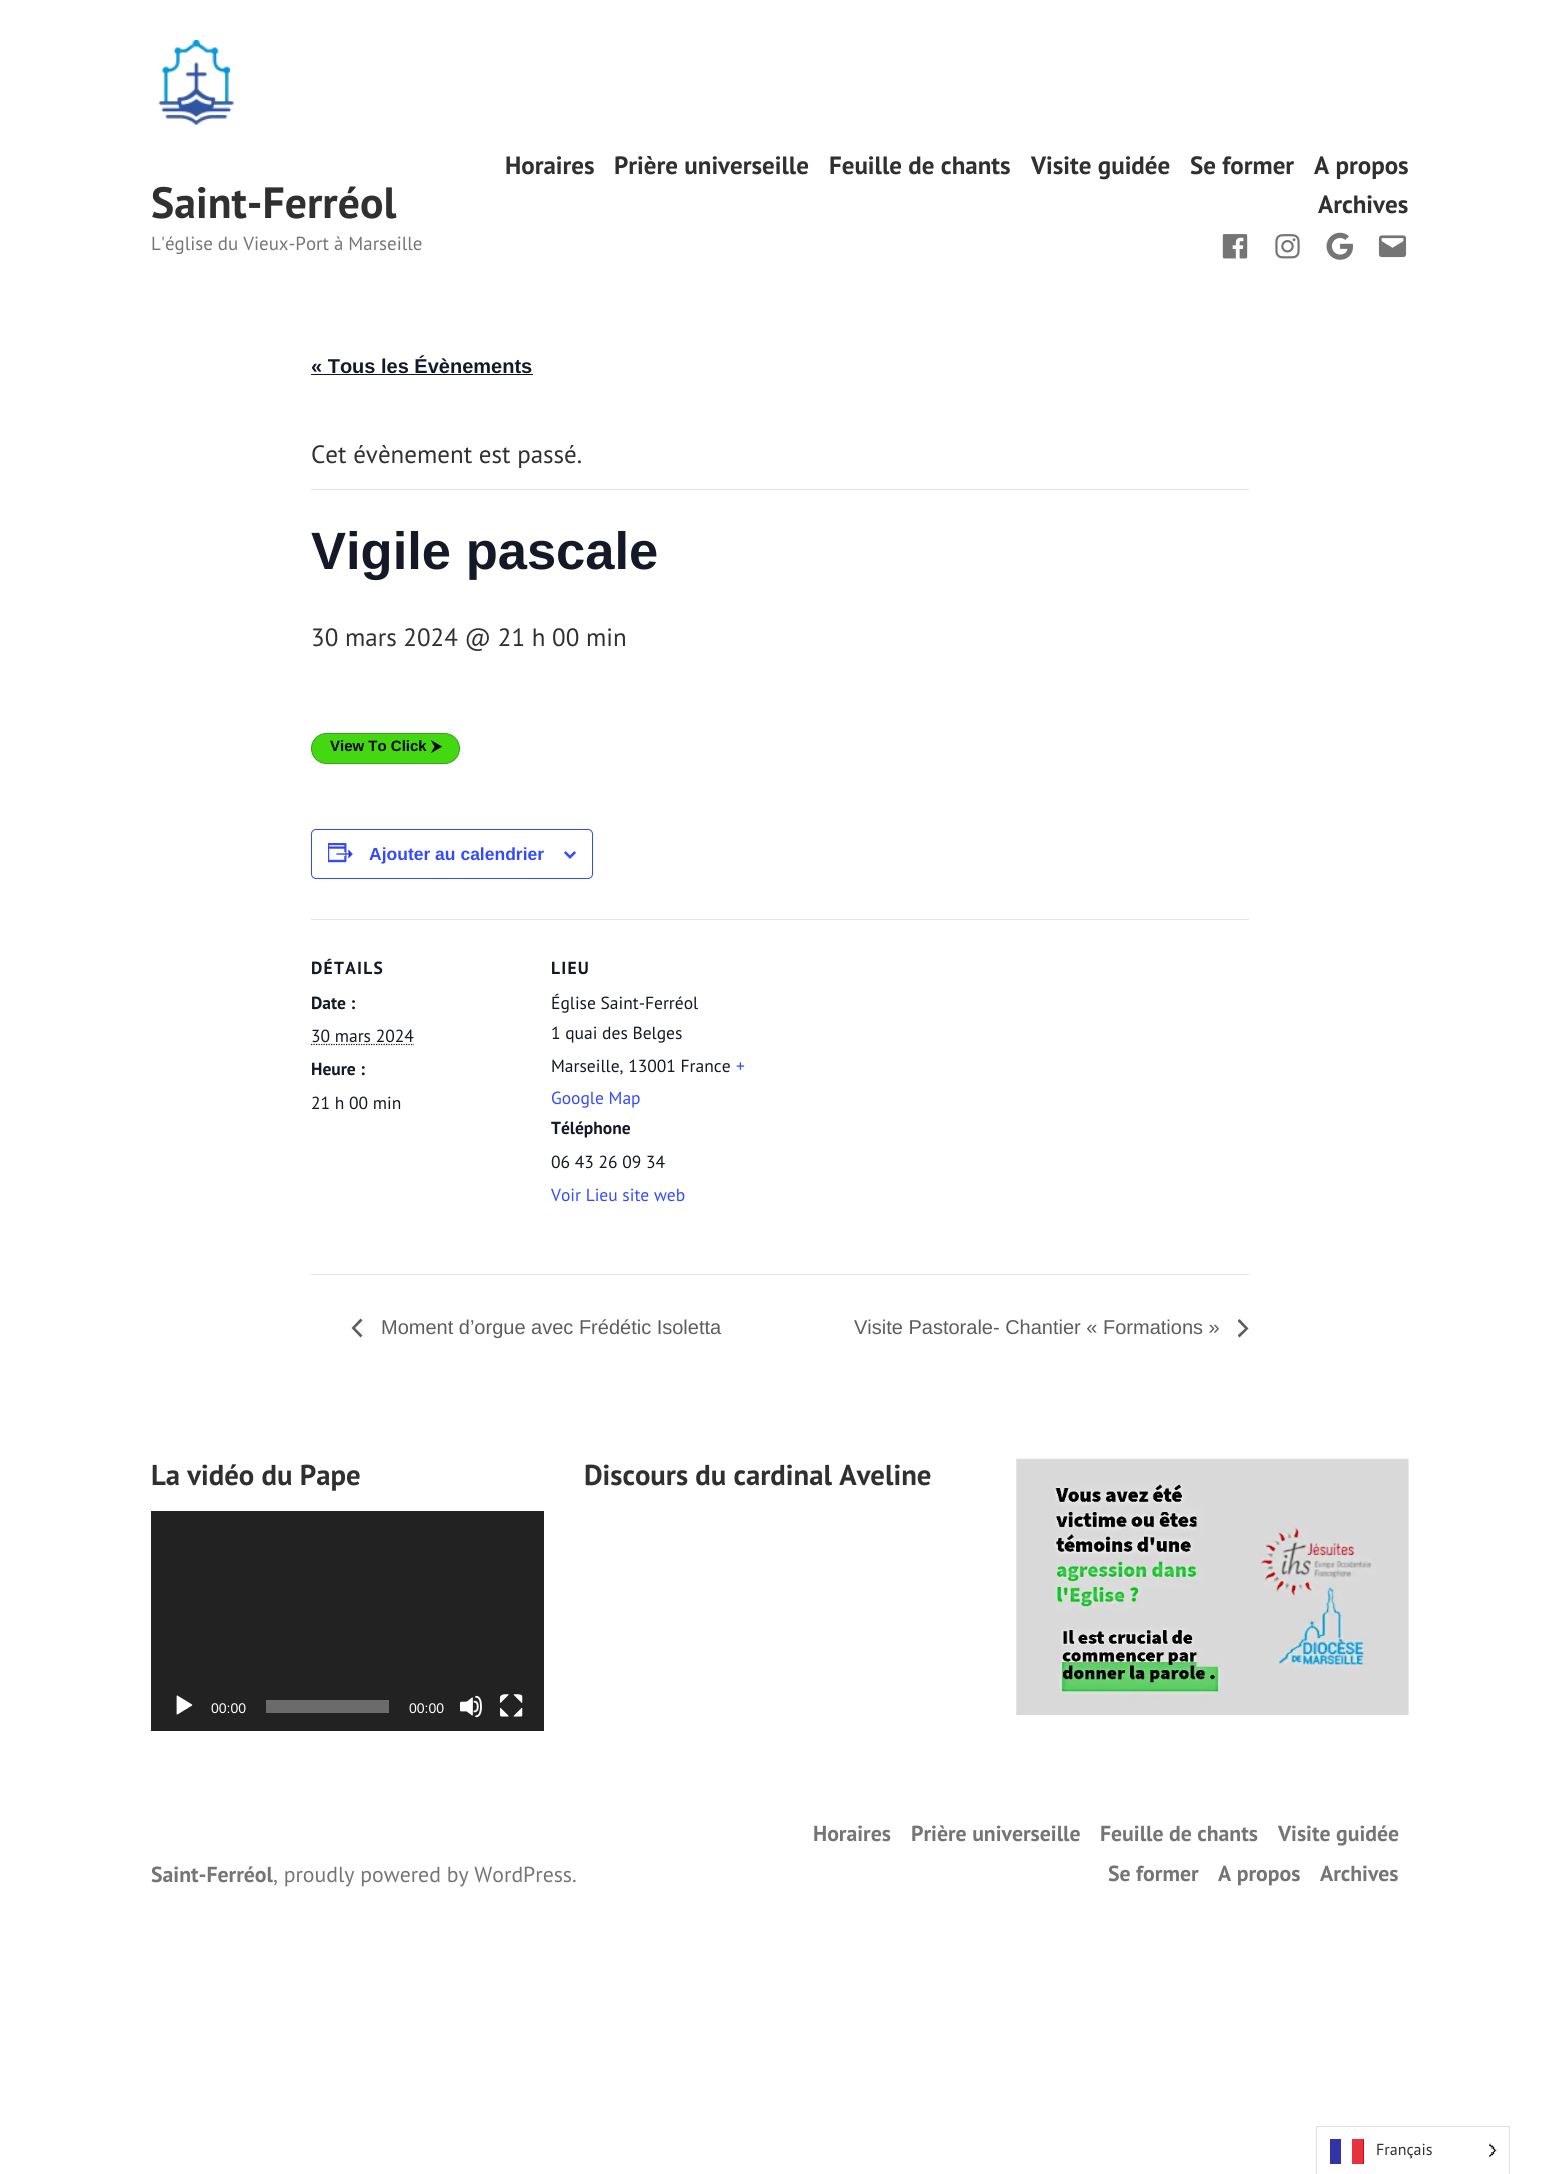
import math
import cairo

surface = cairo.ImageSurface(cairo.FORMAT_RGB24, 1560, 2174)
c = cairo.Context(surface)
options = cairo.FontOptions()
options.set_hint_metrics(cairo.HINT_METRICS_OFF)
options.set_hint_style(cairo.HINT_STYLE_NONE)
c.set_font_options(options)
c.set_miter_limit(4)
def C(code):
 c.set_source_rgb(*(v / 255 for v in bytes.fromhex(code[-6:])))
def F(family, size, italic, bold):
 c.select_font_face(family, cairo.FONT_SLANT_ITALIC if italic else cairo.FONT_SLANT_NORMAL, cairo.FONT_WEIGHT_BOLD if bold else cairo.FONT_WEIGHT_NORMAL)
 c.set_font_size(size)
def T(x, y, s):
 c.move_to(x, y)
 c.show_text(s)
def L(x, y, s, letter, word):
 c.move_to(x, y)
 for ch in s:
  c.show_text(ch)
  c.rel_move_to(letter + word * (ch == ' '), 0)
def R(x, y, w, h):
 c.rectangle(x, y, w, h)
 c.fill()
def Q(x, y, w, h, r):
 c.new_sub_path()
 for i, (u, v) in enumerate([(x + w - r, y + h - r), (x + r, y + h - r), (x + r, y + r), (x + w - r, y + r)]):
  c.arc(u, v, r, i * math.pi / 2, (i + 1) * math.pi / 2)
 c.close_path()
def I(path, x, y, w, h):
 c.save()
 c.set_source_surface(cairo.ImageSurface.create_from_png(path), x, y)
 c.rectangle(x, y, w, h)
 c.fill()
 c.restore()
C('ffffff')
c.paint()
I('1.png',158,40,76,85)
F('PT Sans',43.75,0,1)
C('303030')
T(151,218,'Saint-Ferréol')
F('PT Sans',25,0,1)
T(505,174,'Horaires')
T(614,174,'Prière universeille')
T(829,174,'Feuille de chants')
T(1031,174,'Visite guidée')
T(1190,174,'Se former')
T(1314,174,'A propos')
T(1318,213,'Archives')
F('PT Sans',18.9,0,0)
C('757575')
T(151,250,'L\'église du Vieux-Port à Marseille')
I('2.png',1222,234,26,25)
I('3.png',1275,234,25,25)
I('4.png',1326,232,27,28)
I('5.png',1378,235,29,23)
F('Liberation Sans',20,0,1)
C('141827')
T(311,373,'« Tous les Évènements')
R(311,374,222,1)
C('e4e4e4')
R(311,489,938,1)
F('PT Sans',25,0,0)
C('303030')
T(311,463,'Cet évènement est passé.')
F('Liberation Sans',52.5,0,1)
C('141827')
T(311,569,'Vigile pascale')
F('PT Sans',25,0,0)
C('303030')
T(311,646,'30 mars 2024 @ 21 h 00 min')
C('44d813')
Q(311.5,733.5,148,30,15)
c.fill_preserve()
C('32a518')
c.set_line_width(1)
c.stroke()
F('Liberation Sans',15,0,1)
C('000000')
T(330,751,'View To Click')
F('FreeSans',15,0,1)
T(431,751,'⮞')
Q(311.5,829.5,281,49,4.5)
C('334aff')
c.stroke()
I('6.png',328,843,25,20)
F('Liberation Sans',17.5,0,1)
T(369,860,'Ajouter au calendrier')
I('7.png',564,851,12,8)
C('e4e4e4')
R(311,919,938,1)
F('PT Sans',17.5,0,1)
C('141827')
L(311,974,'DÉTAILS',1.25,0)
T(311,1009,'Date :')
F('PT Sans',17.5,0,0)
T(311,1042,'30 mars 2024')
c.new_path()
c.move_to(311,1044.5)
c.line_to(414,1044.5)
c.set_line_width(1.2)
c.set_dash([1.25,1.25])
c.stroke()
F('PT Sans',17.5,0,1)
T(311,1075,'Heure :')
F('PT Sans',17.5,0,0)
T(311,1109,'21 h 00 min')
F('PT Sans',17.5,0,1)
L(551,974,'LIEU',1.25,0)
F('PT Sans',17.5,0,0)
T(551,1009,'Église Saint-Ferréol')
T(551,1039,'1 quai des Belges')
T(551,1072,'Marseille, 13001 France')
C('334aff')
T(736,1072,'+')
T(551,1104,'Google Map')
F('PT Sans',17.5,0,1)
C('141827')
T(551,1134,'Téléphone')
F('PT Sans',17.5,0,0)
T(551,1168,'06 43 26 09 34')
C('334aff')
T(551,1201,'Voir Lieu site web')
C('e4e4e4')
R(311,1274,938,1)
C('5d5d5d')
c.new_path()
c.move_to(362.5,1335.5)
c.line_to(360.5,1337.5)
c.line_to(351.5,1328)
c.line_to(360.5,1318.5)
c.line_to(362.5,1320.5)
c.line_to(355,1328)
c.close_path()
c.fill()
F('Liberation Sans',20,0,0)
T(381,1334,'Moment d’orgue avec Frédétic Isoletta')
T(854,1334,'Visite Pastorale- Chantier « Formations »')
c.save()
c.rectangle(1238,1319,11,19)
c.clip()
c.new_path()
c.move_to(1237.5,1321)
c.line_to(1239.5,1319)
c.line_to(1248.5,1328.5)
c.line_to(1239.5,1337.5)
c.line_to(1237.5,1335.5)
c.line_to(1245,1328.5)
c.close_path()
c.fill()
c.restore()
F('PT Sans',28.75,0,1)
C('303030')
T(151,1485,'La vidéo du Pape')
C('222222')
R(151,1511,393,220)
I('8.png',176,1695,17,20)
F('Liberation Sans',14,0,0)
C('ffffff')
T(211,1713,'00:00')
C('6b6b6b')
R(266,1700,123,13)
C('ffffff')
T(409,1713,'00:00')
I('9.png',460,1695,22,23)
I('10.png',500,1694,23,23)
F('PT Sans',28.75,0,1)
C('303030')
T(584,1485,'Discours du cardinal Aveline')
I('11.png',1016,1458,393,257)
F('PT Sans',21.75,0,1)
C('757575')
T(151,1882,'Saint-Ferréol')
F('PT Sans',21.75,0,0)
T(273,1882,', proudly powered by WordPress.')
F('PT Sans',21.75,0,1)
T(813,1841,'Horaires')
T(911,1841,'Prière universeille')
T(1100,1841,'Feuille de chants')
T(1278,1841,'Visite guidée')
T(1108,1881,'Se former')
T(1218,1881,'A propos')
T(1320,1881,'Archives')
c.rectangle(1316.5,2126.5,193,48)
C('e0e0e0')
c.set_line_width(1)
c.set_dash([])
c.stroke()
C('3333a7')
R(1330,2139,11,25)
C('e1000f')
R(1363,2139,1,25)
C('e7333f')
R(1352,2139,11,25)
F('PT Sans',16,0,0)
C('303030')
T(1376,2155,'Français')
I('12.png',1489,2143,8,14)
surface.write_to_png('o.png')
